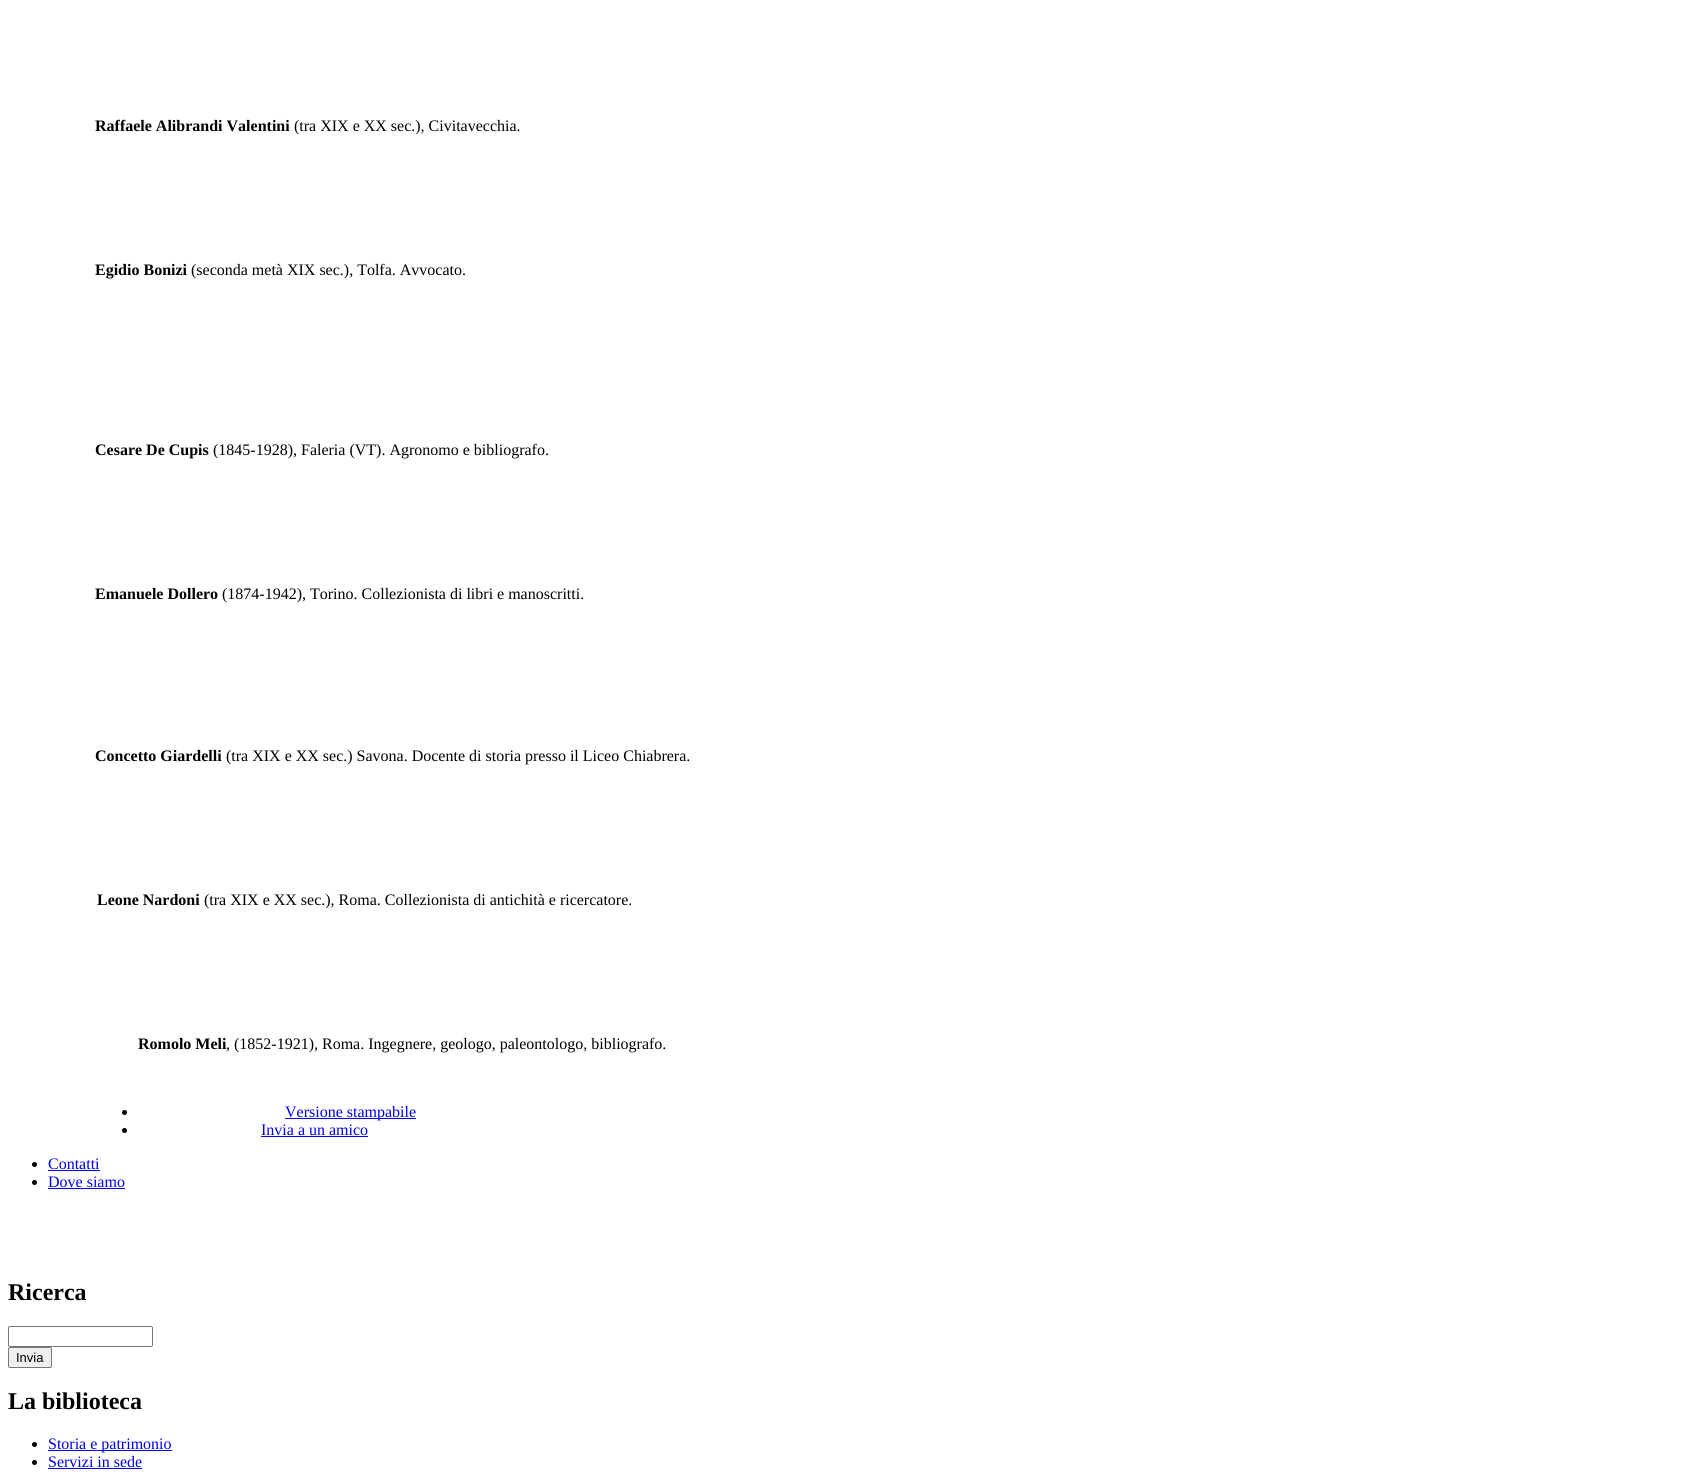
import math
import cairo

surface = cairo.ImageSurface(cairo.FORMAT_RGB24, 1703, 1474)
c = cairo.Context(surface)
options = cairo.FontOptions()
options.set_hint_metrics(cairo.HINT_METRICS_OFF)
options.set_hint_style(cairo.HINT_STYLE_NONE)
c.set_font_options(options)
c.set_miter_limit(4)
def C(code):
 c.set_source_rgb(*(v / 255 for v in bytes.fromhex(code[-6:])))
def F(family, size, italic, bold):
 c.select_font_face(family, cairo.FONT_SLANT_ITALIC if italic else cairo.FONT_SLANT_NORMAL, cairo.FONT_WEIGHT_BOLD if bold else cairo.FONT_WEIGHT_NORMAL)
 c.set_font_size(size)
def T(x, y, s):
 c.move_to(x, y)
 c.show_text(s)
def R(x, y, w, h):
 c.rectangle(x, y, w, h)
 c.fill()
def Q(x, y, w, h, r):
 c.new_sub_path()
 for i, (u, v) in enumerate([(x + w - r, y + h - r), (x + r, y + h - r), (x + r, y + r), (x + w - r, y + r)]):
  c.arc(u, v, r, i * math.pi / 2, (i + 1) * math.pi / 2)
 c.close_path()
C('ffffff')
c.paint()
F('Liberation Serif',16,0,1)
C('000000')
T(95,131,'Raffaele Alibrandi Valentini')
F('Liberation Serif',16,0,0)
T(294,131,'(tra XIX e XX sec.), Civitavecchia.')
F('Liberation Serif',16,0,1)
T(95,275,'Egidio Bonizi')
F('Liberation Serif',16,0,0)
T(191,275,'(seconda metà XIX sec.), Tolfa. Avvocato.')
F('Liberation Serif',16,0,1)
T(95,455,'Cesare De Cupis')
F('Liberation Serif',16,0,0)
T(213,455,'(1845-1928), Faleria (VT). Agronomo e bibliografo.')
F('Liberation Serif',16,0,1)
T(95,599,'Emanuele Dollero')
F('Liberation Serif',16,0,0)
T(222,599,'(1874-1942), Torino. Collezionista di libri e manoscritti.')
F('Liberation Serif',16,0,1)
T(95,761,'Concetto Giardelli')
F('Liberation Serif',16,0,0)
T(226,761,'(tra XIX e XX sec.) Savona. Docente di storia presso il Liceo Chiabrera.')
F('Liberation Serif',16,0,1)
T(97,905,'Leone Nardoni')
F('Liberation Serif',16,0,0)
T(204,905,'(tra XIX e XX sec.), Roma. Collezionista di antichità e ricercatore.')
F('Liberation Serif',16,0,1)
T(138,1049,'Romolo Meli')
F('Liberation Serif',16,0,0)
T(226,1049,', (1852-1921), Roma. Ingegnere, geologo, paleontologo, bibliografo.')
c.new_path()
c.arc(124.5,1112.5,2.5,0,2 * math.pi)
c.fill()
C('0000ee')
R(285,1118,131,1)
T(285,1117,'Versione stampabile')
C('000000')
c.new_path()
c.arc(124.5,1130.5,2.5,0,2 * math.pi)
c.fill()
C('0000ee')
T(261,1135,'Invia a un amico')
R(261,1136,107,1)
C('000000')
c.new_path()
c.arc(34.5,1164.5,2.5,0,2 * math.pi)
c.fill()
C('0000ee')
T(48,1169,'Contatti')
R(48,1170,52,1)
C('000000')
c.new_path()
c.arc(34.5,1182.5,2.5,0,2 * math.pi)
c.fill()
C('0000ee')
T(48,1187,'Dove siamo')
R(48,1188,77,1)
F('Liberation Serif',24,0,1)
C('000000')
T(8,1300,'Ricerca')
Q(8.5,1326.5,144,20,1.5)
C('767676')
c.set_line_width(1)
c.stroke()
C('efefef')
Q(8.5,1347.5,43,20,1.5)
c.fill_preserve()
C('767676')
c.stroke()
F('Liberation Sans',13,0,0)
C('000000')
T(16,1362,'Invia')
F('Liberation Serif',24,0,1)
T(8,1409,'La biblioteca')
c.new_path()
c.arc(34.5,1444.5,2.5,0,2 * math.pi)
c.fill()
C('0000ee')
R(48,1450,124,1)
F('Liberation Serif',16,0,0)
T(48,1449,'Storia e patrimonio')
C('000000')
c.new_path()
c.arc(34.5,1462.5,2.5,0,2 * math.pi)
c.fill()
C('0000ee')
T(48,1467,'Servizi in sede')
R(48,1468,94,1)
surface.write_to_png('o.png')
